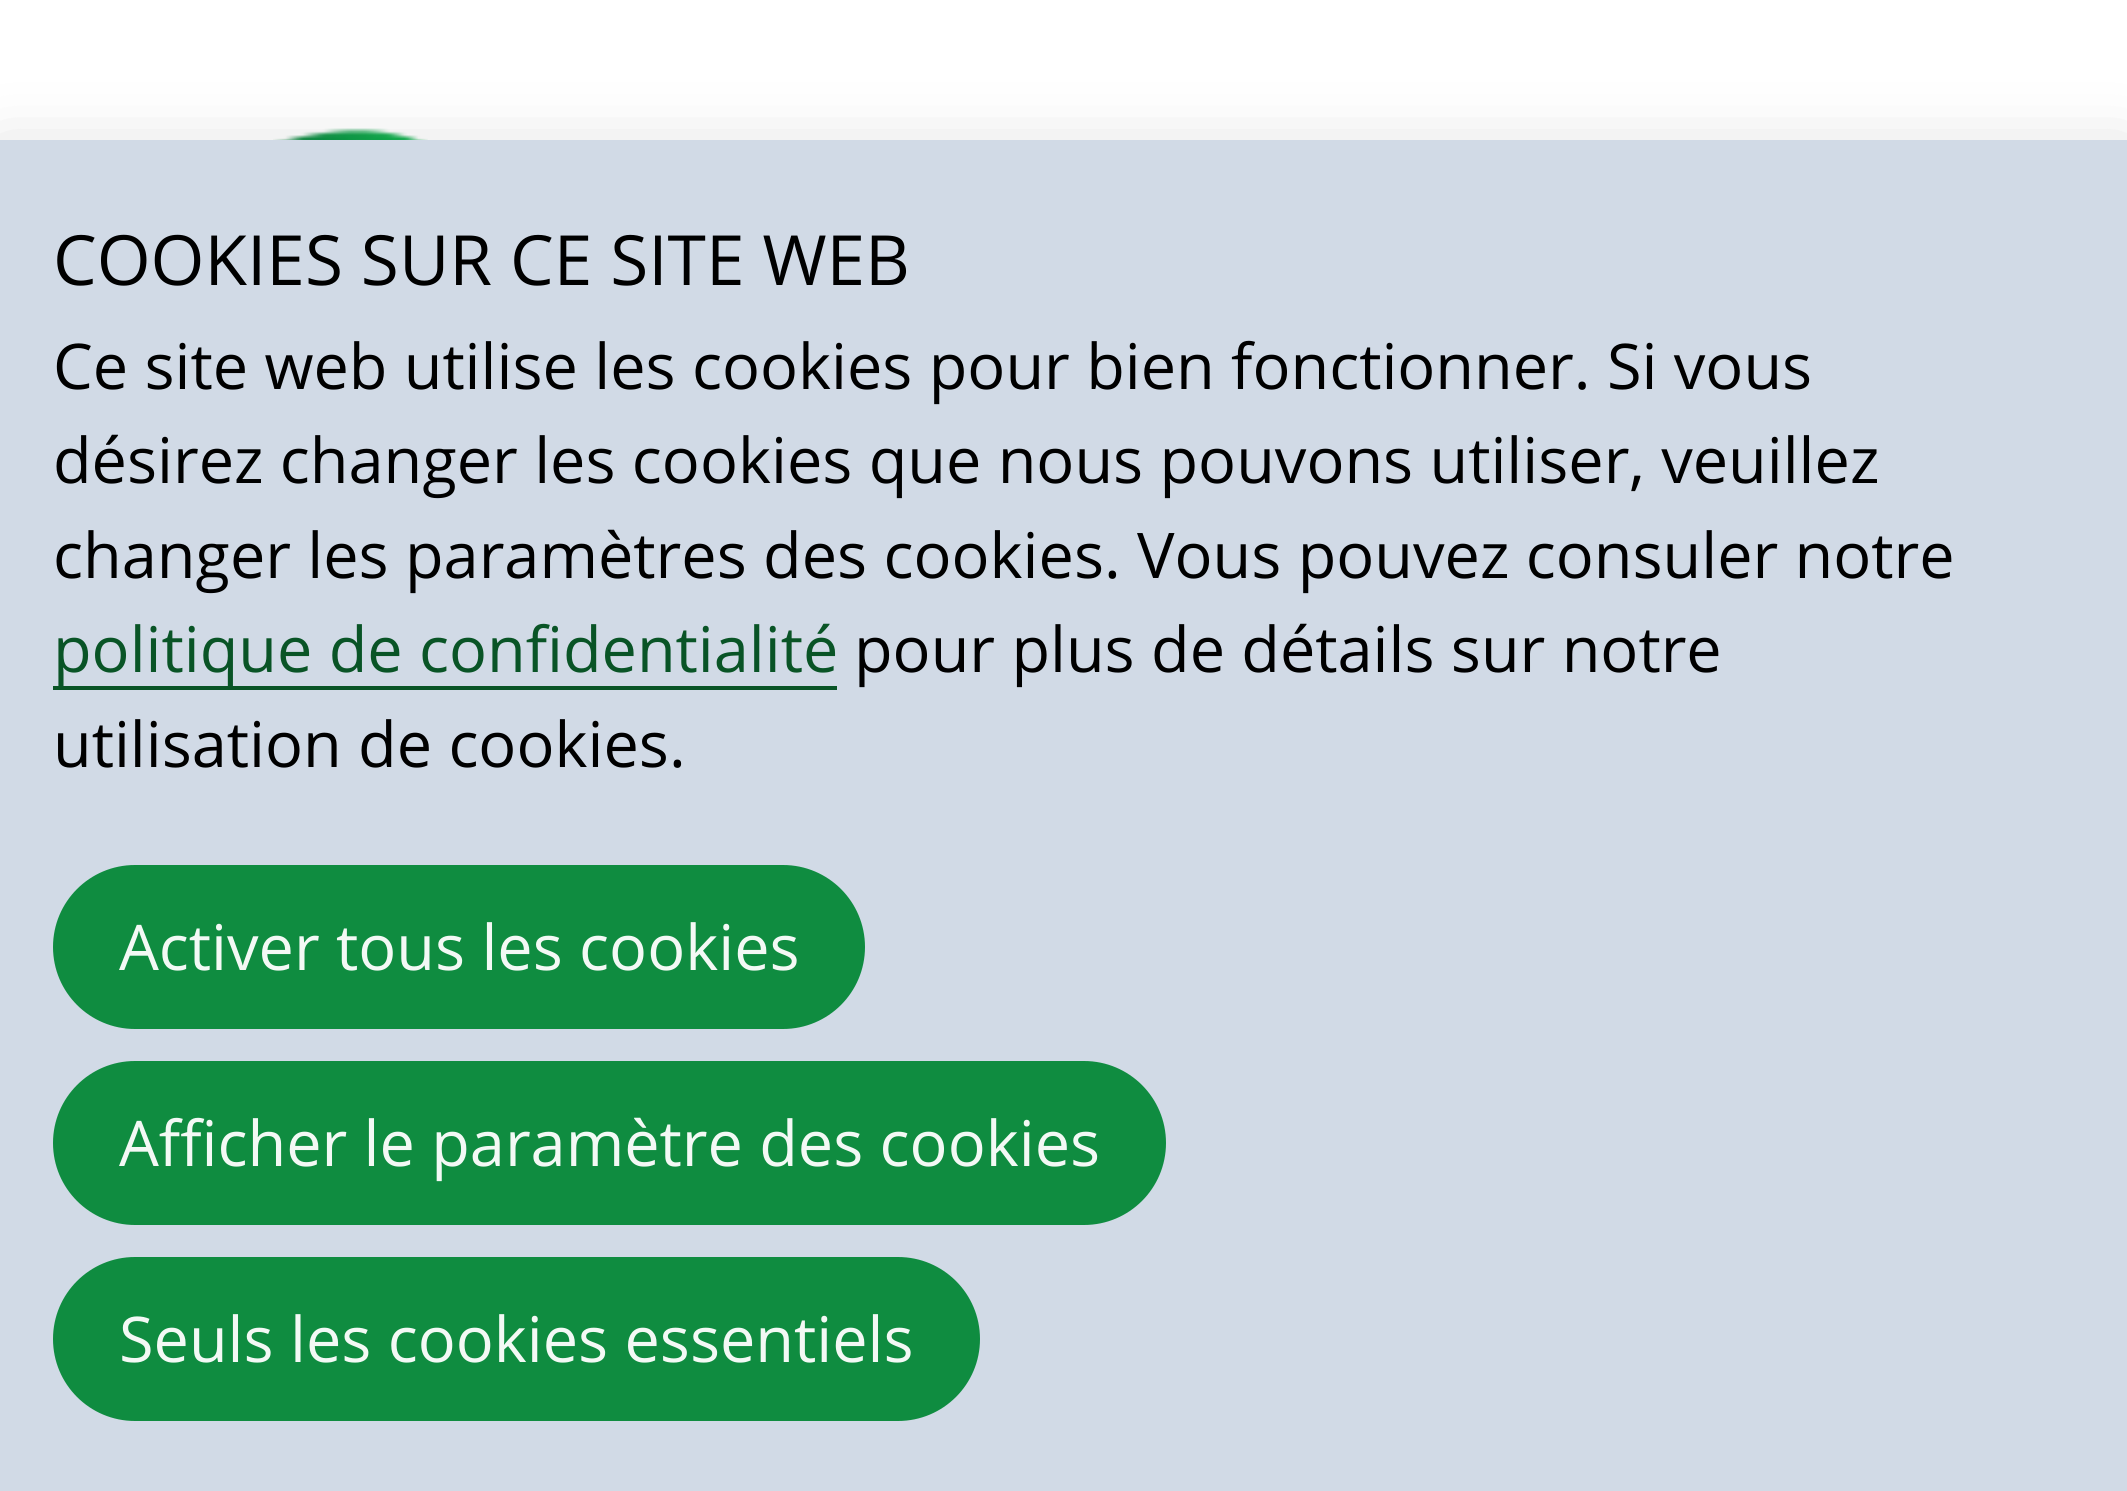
import math
import cairo

surface = cairo.ImageSurface(cairo.FORMAT_RGB24, 2127, 1491)
c = cairo.Context(surface)
options = cairo.FontOptions()
options.set_hint_metrics(cairo.HINT_METRICS_OFF)
options.set_hint_style(cairo.HINT_STYLE_NONE)
c.set_font_options(options)
c.set_miter_limit(4)
def C(code):
 c.set_source_rgb(*(v / 255 for v in bytes.fromhex(code[-6:])))
def F(family, size, italic, bold):
 c.select_font_face(family, cairo.FONT_SLANT_ITALIC if italic else cairo.FONT_SLANT_NORMAL, cairo.FONT_WEIGHT_BOLD if bold else cairo.FONT_WEIGHT_NORMAL)
 c.set_font_size(size)
def T(x, y, s):
 c.move_to(x, y)
 c.show_text(s)
def R(x, y, w, h):
 c.rectangle(x, y, w, h)
 c.fill()
def Q(x, y, w, h, r):
 c.new_sub_path()
 for i, (u, v) in enumerate([(x + w - r, y + h - r), (x + r, y + h - r), (x + r, y + r), (x + w - r, y + r)]):
  c.arc(u, v, r, i * math.pi / 2, (i + 1) * math.pi / 2)
 c.close_path()
def S(x, y, w, h, r, blur, alpha):
 c.push_group_with_content(cairo.CONTENT_ALPHA)
 c.set_operator(cairo.OPERATOR_SOURCE)
 for i in range(15, -16, -2):
  e = blur * i / 6
  if min(w, h) + 2 * e > 0:
   c.set_source_rgba(0, 0, 0, alpha * math.erfc((i - 1) / 8.5) / 2)
   Q(x - e, y - e, w + 2 * e, h + 2 * e, max(0, min(r + e + blur * .6, min(w, h) / 2 + e)))
   c.fill()
 c.mask(c.pop_group())
def I(path, x, y, w, h):
 c.save()
 c.set_source_surface(cairo.ImageSurface.create_from_png(path), x, y)
 c.rectangle(x, y, w, h)
 c.fill()
 c.restore()
C('ffffff')
c.paint()
I('1.png',273,128,155,12)
C('000000')
S(0,158,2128,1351,0,35,.2)
C('d1dae6')
R(0,140,2127,1351)
F('Open Sans',69.25,0,0)
C('000000')
T(53,285,'COOKIES SUR CE SITE WEB')
F('Open Sans',63,0,0)
T(53,389,'Ce site web utilise les cookies pour bien fonctionner. Si vous')
T(53,483,'désirez changer les cookies que nous pouvons utiliser, veuillez')
T(53,578,'changer les paramètres des cookies. Vous pouvez consuler notre')
C('095426')
R(53,686,784,4)
T(53,672,'politique de confidentialité')
C('000000')
T(854,672,'pour plus de détails sur notre')
T(53,767,'utilisation de cookies.')
C('0f8c40')
Q(55,867,808,160,80)
c.fill_preserve()
c.set_line_width(4)
c.stroke()
C('f3f9f5')
T(119,970,'Activer tous les cookies')
C('0f8c40')
Q(55,1063,1109,160,80)
c.fill_preserve()
c.stroke()
C('f3f9f5')
T(119,1166,'Afficher le paramètre des cookies')
C('0f8c40')
Q(55,1259,923,160,80)
c.fill_preserve()
c.stroke()
C('f3f9f5')
T(119,1362,'Seuls les cookies essentiels')
surface.write_to_png('o.png')
